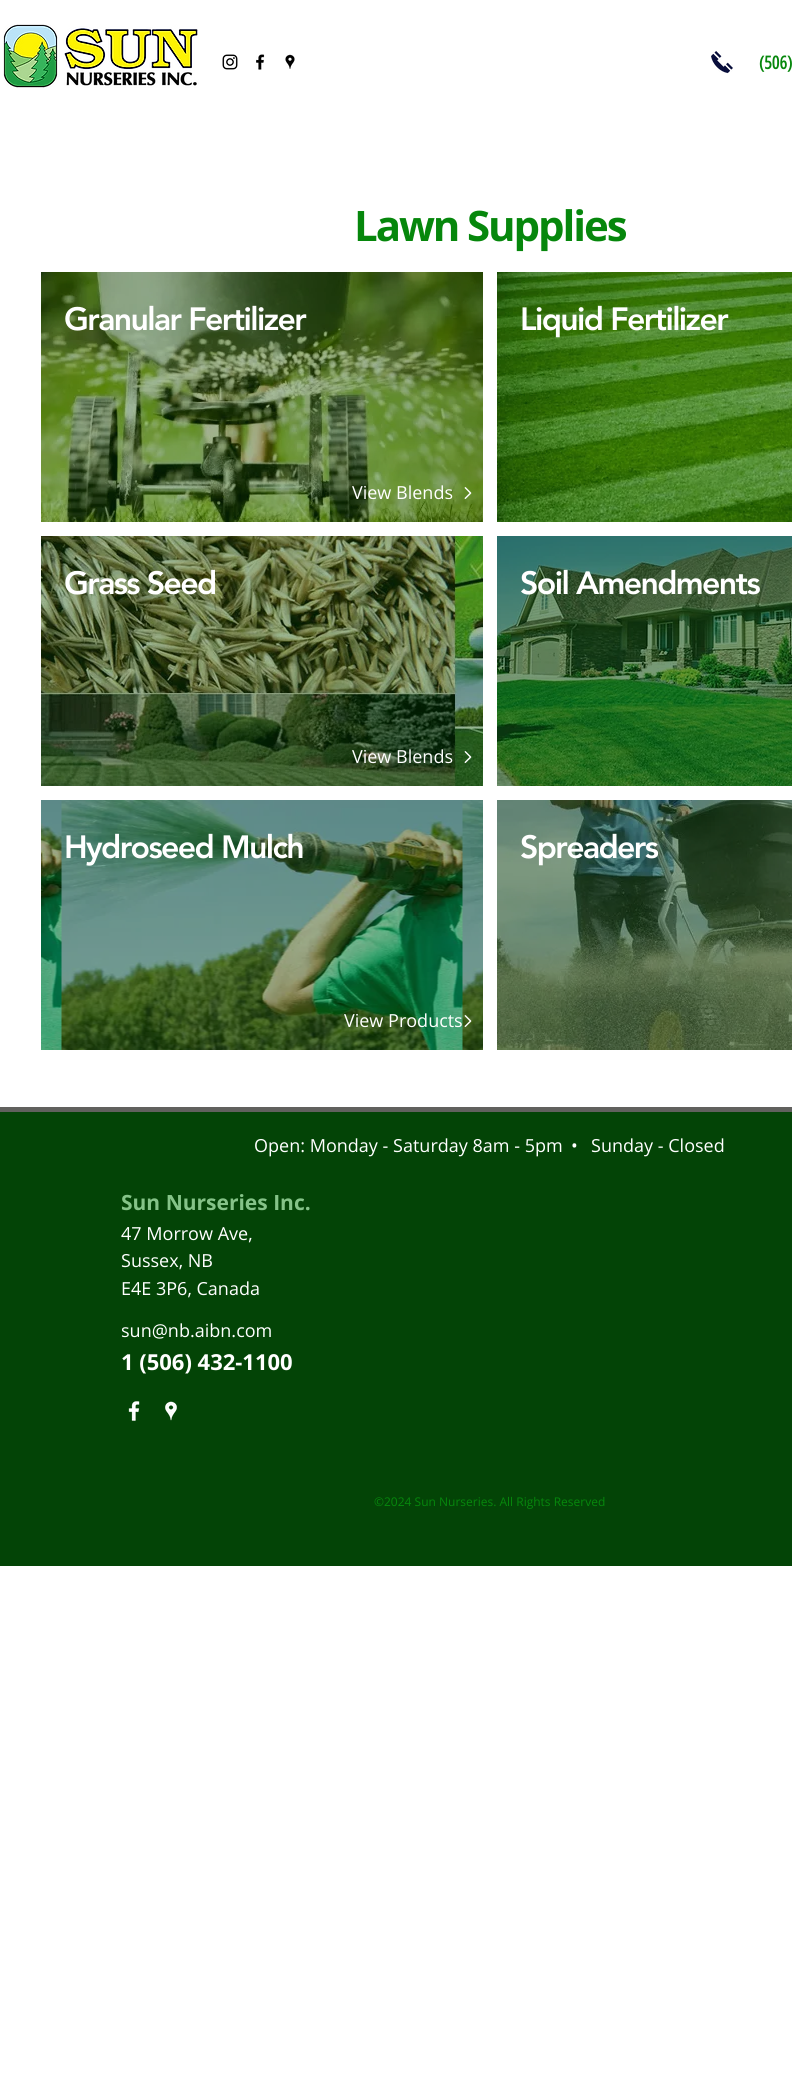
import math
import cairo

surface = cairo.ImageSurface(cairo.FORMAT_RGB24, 792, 2097)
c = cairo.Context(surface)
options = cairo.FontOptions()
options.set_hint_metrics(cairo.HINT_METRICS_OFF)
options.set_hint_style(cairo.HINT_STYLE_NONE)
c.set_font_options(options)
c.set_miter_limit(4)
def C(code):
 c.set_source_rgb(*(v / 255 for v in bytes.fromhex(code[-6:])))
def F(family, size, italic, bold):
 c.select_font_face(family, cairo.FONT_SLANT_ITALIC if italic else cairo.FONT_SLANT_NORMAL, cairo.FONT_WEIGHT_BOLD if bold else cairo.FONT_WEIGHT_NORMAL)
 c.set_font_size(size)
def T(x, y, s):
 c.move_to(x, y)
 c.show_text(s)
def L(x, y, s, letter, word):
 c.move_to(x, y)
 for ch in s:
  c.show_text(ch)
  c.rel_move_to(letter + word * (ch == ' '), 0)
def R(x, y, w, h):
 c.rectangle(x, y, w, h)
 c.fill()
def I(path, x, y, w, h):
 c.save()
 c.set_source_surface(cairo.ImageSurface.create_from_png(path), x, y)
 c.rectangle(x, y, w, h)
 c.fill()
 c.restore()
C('ffffff')
c.paint()
I('1.png',3,24,196,64)
I('2.png',222,54,16,16)
I('3.png',256,54,9,16)
I('4.png',285,54,10,15)
I('5.png',711,51,22,23)
F('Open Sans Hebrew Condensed',18,0,1)
C('06870c')
T(759,69,'(506)')
F('Open Sans',42,0,1)
L(354,241,'Lawn Supplies',-2.1,0)
C('034406')
R(41,272,442,250)
I('6.png',41,272,442,250)
F('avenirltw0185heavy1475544 Black',32,0,0)
C('ffffff')
L(64,330,'Granular Fertilizer',-1.6,0)
F('Open Sans',18,0,0)
T(352,499,'View Blends')
I('7.png',464,487,8,12)
C('034406')
R(41,536,442,250)
I('8.png',41,536,442,250)
F('avenirltw0185heavy1475544 Black',32,0,0)
C('ffffff')
L(64,594,'Grass Seed',-1.6,0)
F('Open Sans',18,0,0)
T(352,763,'View Blends')
I('9.png',464,751,8,12)
C('034406')
R(41,800,442,250)
I('10.png',41,800,442,250)
F('avenirltw0185heavy1475544 Black',32,0,0)
C('ffffff')
L(64,858,'Hydroseed Mulch',-1.6,0)
F('Open Sans',18,0,0)
T(344,1027,'View Products')
I('11.png',464,1015,8,12)
C('034406')
R(497,272,295,250)
I('12.png',497,272,295,250)
F('avenirltw0185heavy1475544 Black',32,0,0)
C('ffffff')
L(520,330,'Liquid Fertilizer',-1.6,0)
C('034406')
R(497,536,295,250)
I('13.png',497,536,295,250)
C('ffffff')
L(520,594,'Soil Amendments',-1.6,0)
C('034406')
R(497,800,295,250)
I('14.png',497,800,295,250)
C('ffffff')
L(520,858,'Spreaders',-1.6,0)
C('034406')
R(0,1112,792,454)
C('61615e')
R(0,1107,792,5)
F('Open Sans',18,0,0)
C('ffffff')
T(254,1152,'Open: Monday - Saturday 8am - 5pm')
T(571,1152,'•')
T(591,1152,'Sunday - Closed')
F('Open Sans',21,0,1)
C('85c388')
T(121,1210,'Sun Nurseries Inc.')
F('Open Sans',18,0,0)
C('ffffff')
T(121,1240,'47 Morrow Ave,')
T(121,1267,'Sussex, NB')
T(121,1295,'E4E 3P6, Canada')
T(121,1337,'sun@nb.aibn.com')
F('Open Sans',22,0,1)
T(121,1370,'1 (506) 432-1100')
I('15.png',128,1401,12,20)
I('16.png',165,1401,12,20)
F('Open Sans',12,0,0)
C('06870c')
T(374,1506,'©2024 Sun Nurseries. All Rights Reserved')
surface.write_to_png('o.png')
